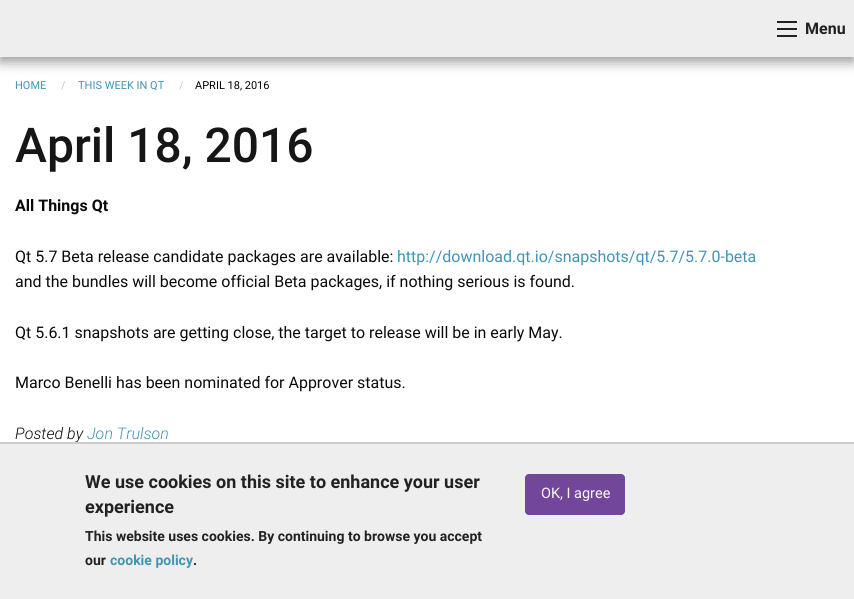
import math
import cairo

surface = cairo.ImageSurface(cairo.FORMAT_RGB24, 854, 599)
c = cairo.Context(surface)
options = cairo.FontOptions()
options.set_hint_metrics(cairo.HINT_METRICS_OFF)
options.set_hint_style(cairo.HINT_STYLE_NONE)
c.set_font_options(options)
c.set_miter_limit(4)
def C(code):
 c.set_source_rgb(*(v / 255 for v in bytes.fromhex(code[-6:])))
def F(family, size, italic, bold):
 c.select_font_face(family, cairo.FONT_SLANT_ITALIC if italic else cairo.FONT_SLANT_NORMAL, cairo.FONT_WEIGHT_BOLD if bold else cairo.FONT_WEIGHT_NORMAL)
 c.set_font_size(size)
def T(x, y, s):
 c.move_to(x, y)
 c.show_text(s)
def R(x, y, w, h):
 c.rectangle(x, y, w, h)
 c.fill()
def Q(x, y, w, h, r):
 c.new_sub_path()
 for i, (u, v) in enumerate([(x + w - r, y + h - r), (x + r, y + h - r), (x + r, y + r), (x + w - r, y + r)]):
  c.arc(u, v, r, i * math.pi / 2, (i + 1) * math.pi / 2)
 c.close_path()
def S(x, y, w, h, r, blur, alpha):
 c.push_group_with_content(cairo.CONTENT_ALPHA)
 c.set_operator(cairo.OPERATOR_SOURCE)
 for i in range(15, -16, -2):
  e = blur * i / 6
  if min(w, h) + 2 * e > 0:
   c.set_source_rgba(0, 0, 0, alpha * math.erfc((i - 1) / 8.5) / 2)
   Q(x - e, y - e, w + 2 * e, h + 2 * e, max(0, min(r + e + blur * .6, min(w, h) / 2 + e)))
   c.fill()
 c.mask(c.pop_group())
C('ffffff')
c.paint()
C('000000')
S(0,5,854,57,0,6,.4)
C('eeeeee')
R(0,0,854,57)
C('222222')
R(777,35,20,2)
R(777,28,20,2)
R(777,21,20,2)
F('Roboto',16,0,1)
T(805,34,'Menu')
F('Roboto',11,0,0)
C('4094b6')
T(15,89,'HOME')
C('cacaca')
T(61,89,'/')
C('4094b6')
T(78,89,'THIS WEEK IN QT')
C('cacaca')
T(179,89,'/')
C('000000')
T(195,89,'APRIL 18, 2016')
F('Roboto Medium',48,0,0)
C('161616')
T(15,162,'April 18, 2016')
F('Roboto',16,0,1)
C('0a0a0a')
T(15,211,'All Things Qt')
F('Roboto',16,0,0)
T(15,262,'Qt 5.7 Beta release candidate packages are available:')
C('4094b6')
T(397,262,'http://download.qt.io/snapshots/qt/5.7/5.7.0-beta')
C('0a0a0a')
T(15,287,'and the bundles will become official Beta packages, if nothing serious is found.')
T(15,338,'Qt 5.6.1 snapshots are getting close, the target to release will be in early May.')
T(15,388,'Marco Benelli has been nominated for Approver status.')
F('Roboto Light',16,1,0)
T(15,439,'Posted by')
C('4094b6')
T(87,439,'Jon Trulson')
C('eeeeee')
R(0,444,854,155)
C('cccccc')
R(0,442,854,2)
F('Roboto',18,0,1)
C('222222')
T(85,488,'We use cookies on this site to enhance your user')
T(85,513,'experience')
F('Roboto',14,0,1)
T(85,541,'This website uses cookies. By continuing to browse you accept')
T(85,565,'our')
C('4094b6')
T(110,565,'cookie policy')
C('222222')
T(193,565,'.')
C('71469b')
Q(525,474,100,41,4)
c.fill()
F('Roboto',14.5,0,0)
C('fefefe')
T(541,498,'OK, I agree')
surface.write_to_png('o.png')
